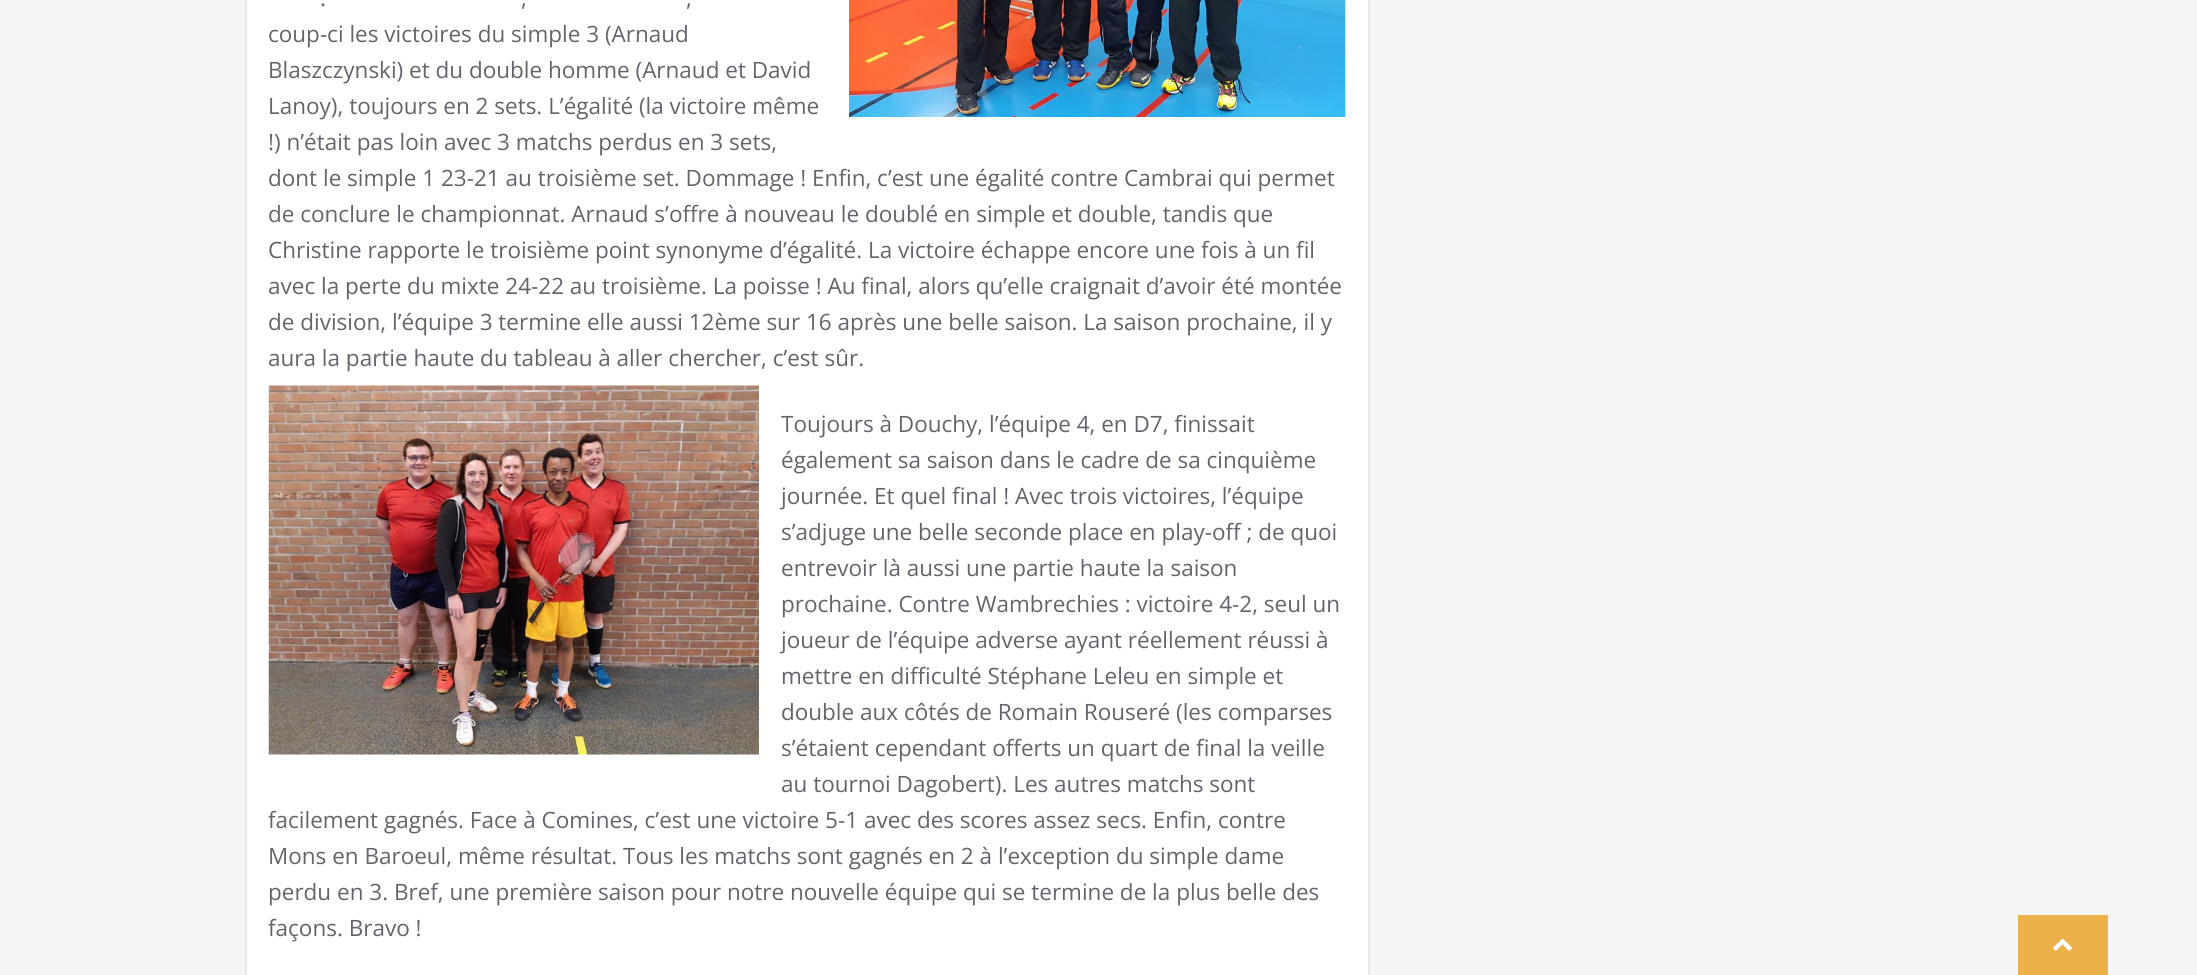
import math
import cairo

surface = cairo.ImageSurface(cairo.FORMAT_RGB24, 2197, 975)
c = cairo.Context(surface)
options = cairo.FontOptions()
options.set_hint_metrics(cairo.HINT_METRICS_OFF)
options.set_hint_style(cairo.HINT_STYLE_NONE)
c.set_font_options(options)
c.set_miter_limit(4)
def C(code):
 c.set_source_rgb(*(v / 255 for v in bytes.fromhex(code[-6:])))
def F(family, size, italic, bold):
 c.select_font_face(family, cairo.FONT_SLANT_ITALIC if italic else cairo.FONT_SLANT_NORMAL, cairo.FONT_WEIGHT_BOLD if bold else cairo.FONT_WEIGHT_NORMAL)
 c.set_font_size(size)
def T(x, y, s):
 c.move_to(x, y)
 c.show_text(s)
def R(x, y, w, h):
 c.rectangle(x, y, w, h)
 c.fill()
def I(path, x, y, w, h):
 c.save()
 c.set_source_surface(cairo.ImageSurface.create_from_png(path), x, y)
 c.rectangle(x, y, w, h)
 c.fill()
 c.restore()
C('f5f5f5')
c.paint()
C('ffffff')
c.rectangle(246,-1,1123,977)
c.fill_preserve()
C('e9e9e9')
c.stroke()
I('1.png',849,0,497,117)
F('Open Sans',22.5,0,0)
C('64646d')
T(320,6,'.')
T(521,6,',')
T(686,6,',')
T(268,42,'coup-ci les victoires du simple 3 (Arnaud')
T(268,78,'Blaszczynski) et du double homme (Arnaud et David')
T(268,114,'Lanoy), toujours en 2 sets. L’égalité (la victoire même')
T(268,150,'!) n’était pas loin avec 3 matchs perdus en 3 sets,')
T(268,186,'dont le simple 1 23-21 au troisième set. Dommage ! Enfin, c’est une égalité contre Cambrai qui permet')
T(268,222,'de conclure le championnat. Arnaud s’offre à nouveau le doublé en simple et double, tandis que')
T(268,258,'Christine rapporte le troisième point synonyme d’égalité. La victoire échappe encore une fois à un fil')
T(268,294,'avec la perte du mixte 24-22 au troisième. La poisse ! Au final, alors qu’elle craignait d’avoir été montée')
T(268,330,'de division, l’équipe 3 termine elle aussi 12ème sur 16 après une belle saison. La saison prochaine, il y')
T(268,366,'aura la partie haute du tableau à aller chercher, c’est sûr.')
I('2.png',268,385,491,370)
T(781,432,'Toujours à Douchy, l’équipe 4, en D7, finissait')
T(781,468,'également sa saison dans le cadre de sa cinquième')
T(781,504,'journée. Et quel final ! Avec trois victoires, l’équipe')
T(781,540,'s’adjuge une belle seconde place en play-off ; de quoi')
T(781,576,'entrevoir là aussi une partie haute la saison')
T(781,612,'prochaine. Contre Wambrechies : victoire 4-2, seul un')
T(781,648,'joueur de l’équipe adverse ayant réellement réussi à')
T(781,684,'mettre en difficulté Stéphane Leleu en simple et')
T(781,720,'double aux côtés de Romain Rouseré (les comparses')
T(781,756,'s’étaient cependant offerts un quart de final la veille')
T(781,792,'au tournoi Dagobert). Les autres matchs sont')
T(268,828,'facilement gagnés. Face à Comines, c’est une victoire 5-1 avec des scores assez secs. Enfin, contre')
T(268,864,'Mons en Baroeul, même résultat. Tous les matchs sont gagnés en 2 à l’exception du simple dame')
T(268,900,'perdu en 3. Bref, une première saison pour notre nouvelle équipe qui se termine de la plus belle des')
T(268,936,'façons. Bravo !')
C('ecb249')
R(2018,915,90,60)
I('3.png',2053,938,19,13)
surface.write_to_png('o.png')
